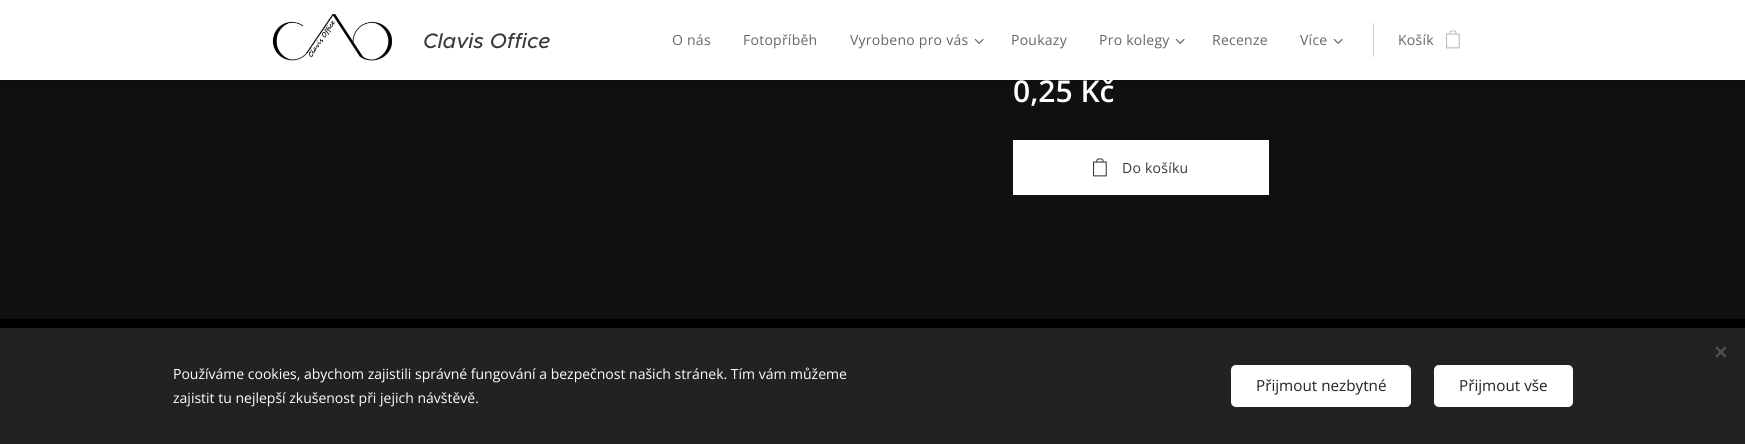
import math
import cairo

surface = cairo.ImageSurface(cairo.FORMAT_RGB24, 1745, 444)
c = cairo.Context(surface)
options = cairo.FontOptions()
options.set_hint_metrics(cairo.HINT_METRICS_OFF)
options.set_hint_style(cairo.HINT_STYLE_NONE)
c.set_font_options(options)
c.set_miter_limit(4)
def C(code):
 c.set_source_rgb(*(v / 255 for v in bytes.fromhex(code[-6:])))
def F(family, size, italic, bold):
 c.select_font_face(family, cairo.FONT_SLANT_ITALIC if italic else cairo.FONT_SLANT_NORMAL, cairo.FONT_WEIGHT_BOLD if bold else cairo.FONT_WEIGHT_NORMAL)
 c.set_font_size(size)
def T(x, y, s):
 c.move_to(x, y)
 c.show_text(s)
def L(x, y, s, letter, word):
 c.move_to(x, y)
 for ch in s:
  c.show_text(ch)
  c.rel_move_to(letter + word * (ch == ' '), 0)
def R(x, y, w, h):
 c.rectangle(x, y, w, h)
 c.fill()
def Q(x, y, w, h, r):
 c.new_sub_path()
 for i, (u, v) in enumerate([(x + w - r, y + h - r), (x + r, y + h - r), (x + r, y + r), (x + w - r, y + r)]):
  c.arc(u, v, r, i * math.pi / 2, (i + 1) * math.pi / 2)
 c.close_path()
def S(x, y, w, h, r, blur, alpha):
 c.push_group_with_content(cairo.CONTENT_ALPHA)
 c.set_operator(cairo.OPERATOR_SOURCE)
 for i in range(15, -16, -2):
  e = blur * i / 6
  if min(w, h) + 2 * e > 0:
   c.set_source_rgba(0, 0, 0, alpha * math.erfc((i - 1) / 8.5) / 2)
   Q(x - e, y - e, w + 2 * e, h + 2 * e, max(0, min(r + e + blur * .6, min(w, h) / 2 + e)))
   c.fill()
 c.mask(c.pop_group())
def I(path, x, y, w, h):
 c.save()
 c.set_source_surface(cairo.ImageSurface.create_from_png(path), x, y)
 c.rectangle(x, y, w, h)
 c.fill()
 c.restore()
C('000000')
c.paint()
C('101010')
R(0,80,1745,239)
C('000000')
S(0,5,1745,80,0,7.5,.07)
C('ffffff')
R(0,0,1745,80)
I('1.png',272,14,120,47)
F('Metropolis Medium',21,1,0)
C('393939')
T(423,48,'Clavis Office')
F('Open Sans',14,0,0)
C('666666')
L(672,45,'O nás',.25,0)
L(743,45,'Fotopříběh',.25,0)
L(850,45,'Vyrobeno pro vás',.25,0)
I('2.png',974,38,10,6)
L(1011,45,'Poukazy',.25,0)
L(1099,45,'Pro kolegy',.25,0)
I('2.png',1175,38,10,6)
L(1212,45,'Recenze',.25,0)
L(1300,45,'Více',.25,0)
I('2.png',1333,38,10,6)
C('d1d1d1')
R(1373,23,1,34)
C('666666')
L(1398,45,'Košík',.25,0)
I('3.png',1446,30,14,19)
F('Open Sans SemiBold',30,0,0)
C('ffffff')
T(1013,102,'0,25 Kč')
R(1013,140,256,55)
I('4.png',1093,158,14,19)
F('Open Sans',14,0,0)
C('393939')
L(1122,173,'Do košíku',.25,0)
C('222222')
R(0,328,1745,116)
C('555555')
c.new_path()
c.move_to(1715.5,356)
c.line_to(1725,346.5)
c.line_to(1726.5,348)
c.line_to(1717,357.5)
c.close_path()
c.fill()
c.new_path()
c.move_to(1717,346.5)
c.line_to(1726.5,356)
c.line_to(1725,357.5)
c.line_to(1715.5,348)
c.close_path()
c.fill()
C('ffffff')
T(173,379,'Používáme cookies, abychom zajistili správné fungování a bezpečnost našich stránek. Tím vám můžeme')
T(173,403,'zajistit tu nejlepší zkušenost při jejich návštěvě.')
Q(1231,365,180,42,5)
c.fill()
F('Open Sans',15.25,0,0)
C('222222')
T(1256,391,'Přijmout nezbytné')
C('ffffff')
Q(1434,365,139,42,5)
c.fill()
C('222222')
T(1459,391,'Přijmout vše')
surface.write_to_png('o.png')
